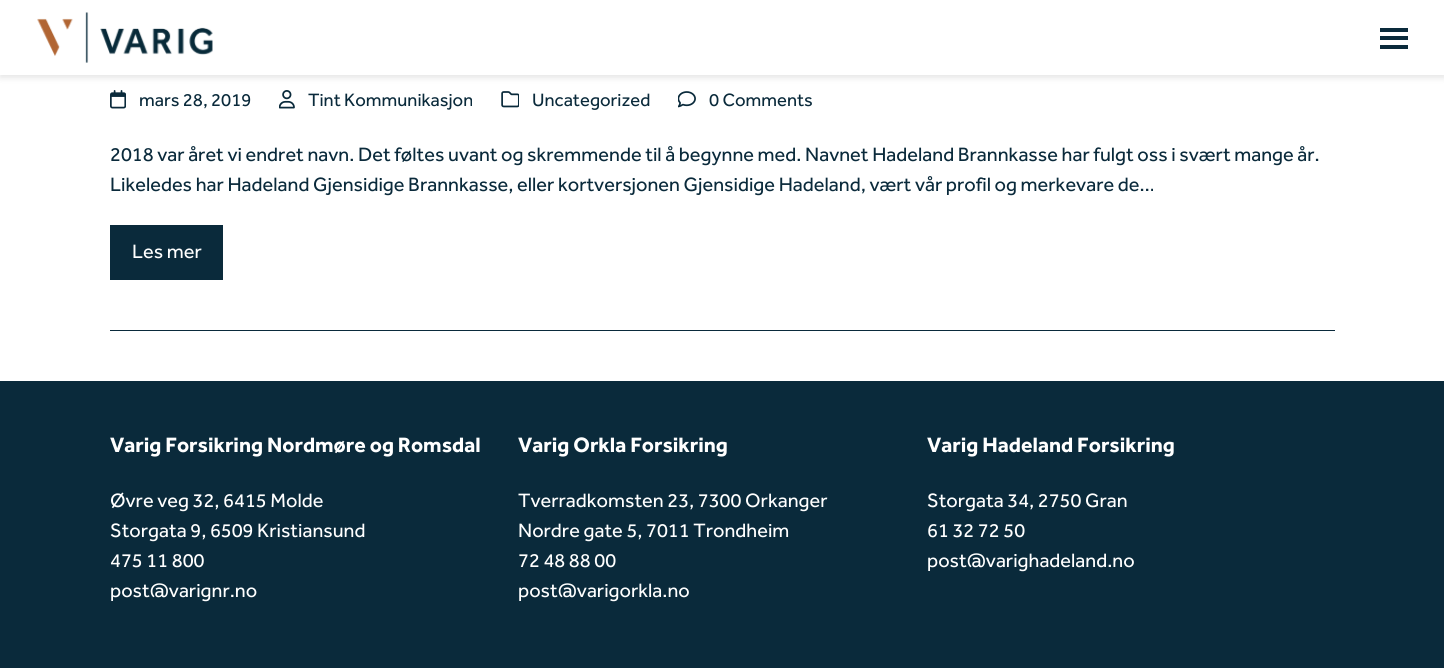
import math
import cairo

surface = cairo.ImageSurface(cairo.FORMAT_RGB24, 1444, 668)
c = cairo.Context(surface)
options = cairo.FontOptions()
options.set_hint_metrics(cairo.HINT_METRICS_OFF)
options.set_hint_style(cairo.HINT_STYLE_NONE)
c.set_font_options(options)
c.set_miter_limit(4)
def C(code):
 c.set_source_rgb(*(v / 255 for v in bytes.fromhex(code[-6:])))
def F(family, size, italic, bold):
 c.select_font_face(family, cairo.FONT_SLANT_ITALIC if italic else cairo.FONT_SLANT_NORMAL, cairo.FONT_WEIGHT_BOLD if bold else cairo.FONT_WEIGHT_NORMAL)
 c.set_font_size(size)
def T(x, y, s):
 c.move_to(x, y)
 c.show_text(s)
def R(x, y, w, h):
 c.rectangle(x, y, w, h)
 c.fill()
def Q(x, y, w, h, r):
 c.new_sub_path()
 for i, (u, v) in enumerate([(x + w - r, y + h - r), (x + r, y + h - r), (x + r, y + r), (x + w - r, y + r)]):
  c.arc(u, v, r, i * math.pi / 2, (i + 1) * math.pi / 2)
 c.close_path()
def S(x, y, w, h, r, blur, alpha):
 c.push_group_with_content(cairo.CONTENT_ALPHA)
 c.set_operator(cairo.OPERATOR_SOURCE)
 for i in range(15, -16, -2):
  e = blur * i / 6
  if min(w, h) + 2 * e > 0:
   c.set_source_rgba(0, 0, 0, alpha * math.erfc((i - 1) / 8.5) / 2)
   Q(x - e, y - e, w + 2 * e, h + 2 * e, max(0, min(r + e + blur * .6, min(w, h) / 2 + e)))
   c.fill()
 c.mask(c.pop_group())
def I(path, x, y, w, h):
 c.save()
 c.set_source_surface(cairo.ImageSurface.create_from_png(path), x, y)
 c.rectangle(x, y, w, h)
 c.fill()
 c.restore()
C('ffffff')
c.paint()
C('000000')
S(0,3,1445,75,0,3,.1)
C('ffffff')
R(0,0,1444,75)
I('1.png',37,12,176,51)
C('0a2a3b')
R(1380,36,28,4)
R(1380,28,28,4)
R(1380,45,28,4)
I('2.png',110,90,16,19)
F('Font',18.5,0,0)
T(139,106,'mars 28, 2019')
I('3.png',279,90,16,19)
T(308,106,'Tint Kommunikasjon')
I('4.png',501,91,18,17)
T(532,106,'Uncategorized')
I('5.png',678,91,18,17)
T(709,106,'0 Comments')
F('Font',20,0,0)
T(110,161,'2018 var året vi endret navn. Det føltes uvant og skremmende til å begynne med. Navnet Hadeland Brannkasse har fulgt oss i svært mange år.')
T(110,191,'Likeledes har Hadeland Gjensidige Brannkasse, eller kortversjonen Gjensidige Hadeland, vært vår profil og merkevare de…')
R(110,225,113,55)
C('ffffff')
T(132,258,'Les mer')
C('0a2a3b')
R(110,330,1225,1)
R(0,381,1444,287)
F('Font',21.5,0,1)
C('ffffff')
T(110,452,'Varig Forsikring Nordmøre og Romsdal')
F('Font',20,0,0)
T(110,507,'Øvre veg 32, 6415 Molde')
T(110,537,'Storgata 9, 6509 Kristiansund')
T(110,567,'475 11 800')
T(110,597,'post@varignr.no')
F('Font',21.5,0,1)
T(518,452,'Varig Orkla Forsikring')
F('Font',20,0,0)
T(518,507,'Tverradkomsten 23, 7300 Orkanger')
T(518,537,'Nordre gate 5, 7011 Trondheim')
T(518,567,'72 48 88 00')
T(518,597,'post@varigorkla.no')
F('Font',21.5,0,1)
T(927,452,'Varig Hadeland Forsikring')
F('Font',20,0,0)
T(927,507,'Storgata 34, 2750 Gran')
T(927,537,'61 32 72 50')
T(927,567,'post@varighadeland.no')
surface.write_to_png('o.png')
